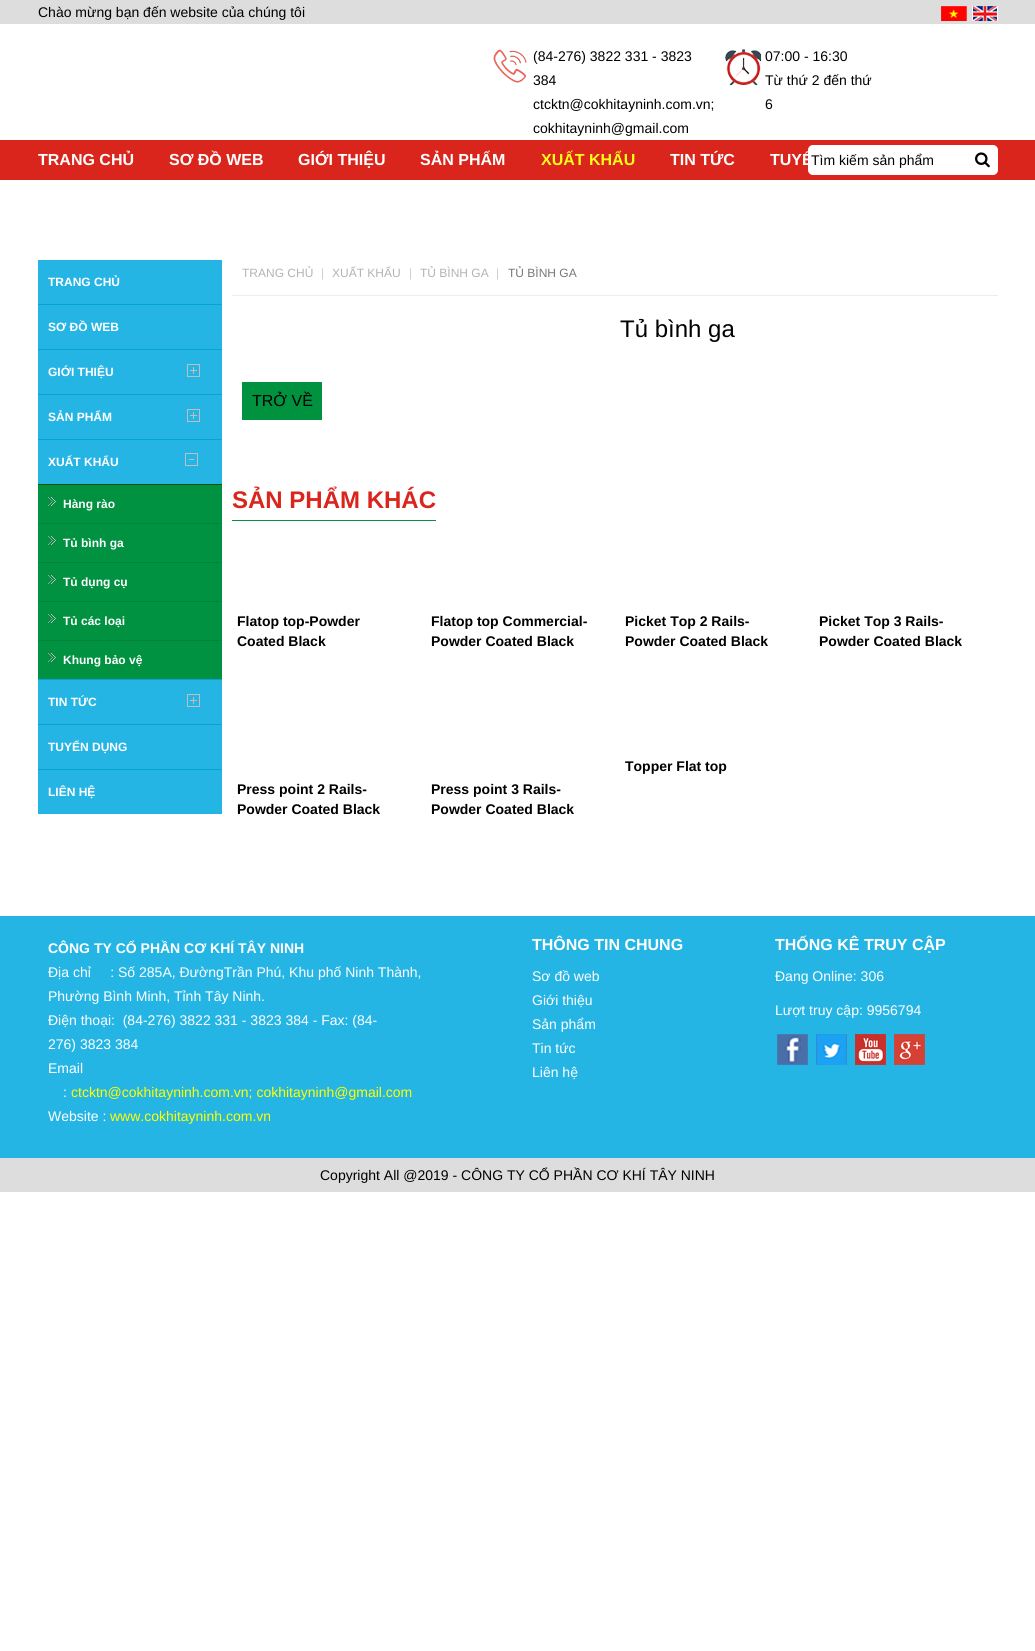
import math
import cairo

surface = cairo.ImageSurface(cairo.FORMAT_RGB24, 1035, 1651)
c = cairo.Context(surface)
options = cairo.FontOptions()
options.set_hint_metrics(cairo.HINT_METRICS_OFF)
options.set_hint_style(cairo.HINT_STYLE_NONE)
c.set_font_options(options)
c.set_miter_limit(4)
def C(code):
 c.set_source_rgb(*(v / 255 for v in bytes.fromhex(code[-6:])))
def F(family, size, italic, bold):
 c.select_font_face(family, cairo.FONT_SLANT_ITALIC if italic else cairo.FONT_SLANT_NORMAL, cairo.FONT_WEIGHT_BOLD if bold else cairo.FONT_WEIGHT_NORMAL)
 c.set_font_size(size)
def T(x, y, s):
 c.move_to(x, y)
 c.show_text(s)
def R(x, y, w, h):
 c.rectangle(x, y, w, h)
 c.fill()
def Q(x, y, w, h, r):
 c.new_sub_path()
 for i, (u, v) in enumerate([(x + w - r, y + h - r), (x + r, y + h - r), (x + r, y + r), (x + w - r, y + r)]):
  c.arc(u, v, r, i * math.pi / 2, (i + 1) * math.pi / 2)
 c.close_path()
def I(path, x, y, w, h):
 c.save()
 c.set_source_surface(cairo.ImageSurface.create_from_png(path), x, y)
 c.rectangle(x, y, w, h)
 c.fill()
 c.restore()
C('ffffff')
c.paint()
C('dddddd')
R(0,0,1035,24)
F('Liberation Sans',14,0,0)
C('000000')
T(38,17,'Chào mừng bạn đến website của chúng tôi')
I('1.png',941,6,26,15)
I('2.png',972,6,26,15)
I('3.png',493,49,34,34)
T(533,61,'(84-276) 3822 331 - 3823')
T(533,85,'384')
T(533,109,'ctcktn@cokhitayninh.com.vn;')
T(533,133,'cokhitayninh@gmail.com')
I('4.png',725,49,36,36)
T(765,61,'07:00 - 16:30')
T(765,85,'Từ thứ 2 đến thứ')
T(765,109,'6')
C('da251d')
R(0,140,1035,40)
F('Liberation Sans',16,0,1)
C('ffffff')
T(38,165,'TRANG CHỦ')
T(169,165,'SƠ ĐỒ WEB')
T(298,165,'GIỚI THIỆU')
T(420,165,'SẢN PHẨM')
C('fffc18')
T(541,165,'XUẤT KHẨU')
C('ffffff')
T(670,165,'TIN TỨC')
T(770,165,'TUYỂ')
Q(808,145,190,30,5)
c.fill()
F('Liberation Sans',14,0,0)
C('000000')
T(811,165,'Tìm kiếm sản phẩm')
I('5.png',975,152,15,16)
C('04a3d8')
R(38,304,184,1)
C('25b5e5')
R(38,260,184,44)
F('Liberation Sans',12,0,1)
C('ffffff')
T(48,286,'TRANG CHỦ')
C('04a3d8')
R(38,349,184,1)
C('25b5e5')
R(38,305,184,44)
C('ffffff')
T(48,331,'SƠ ĐỒ WEB')
C('04a3d8')
R(38,394,184,1)
C('25b5e5')
R(38,350,184,44)
C('ffffff')
T(48,376,'GIỚI THIỆU')
I('6.png',187,364,13,13)
C('04a3d8')
R(38,439,184,1)
C('25b5e5')
R(38,395,184,44)
C('ffffff')
T(48,421,'SẢN PHẨM')
I('6.png',187,409,13,13)
C('04a3d8')
R(38,679,184,1)
C('25b5e5')
R(38,440,184,44)
C('ffffff')
T(48,466,'XUẤT KHẨU')
I('7.png',185,453,13,13)
C('0e5002')
R(38,484,184,1)
C('008439')
R(38,523,184,1)
C('009240')
R(38,485,184,38)
I('8.png',48,497,8,9)
C('ffffff')
T(63,508,'Hàng rào')
C('008439')
R(38,562,184,1)
C('009240')
R(38,524,184,38)
I('8.png',48,536,8,9)
C('ffffff')
T(63,547,'Tủ bình ga')
C('008439')
R(38,601,184,1)
C('009240')
R(38,563,184,38)
I('8.png',48,575,8,9)
C('ffffff')
T(63,586,'Tủ dụng cụ')
C('008439')
R(38,640,184,1)
C('009240')
R(38,602,184,38)
I('8.png',48,614,8,9)
C('ffffff')
T(63,625,'Tủ các loại')
C('009240')
R(38,641,184,38)
I('8.png',48,653,8,9)
C('ffffff')
T(63,664,'Khung bảo vệ')
C('04a3d8')
R(38,724,184,1)
C('25b5e5')
R(38,680,184,44)
C('ffffff')
T(48,706,'TIN TỨC')
I('6.png',187,694,13,13)
C('04a3d8')
R(38,769,184,1)
C('25b5e5')
R(38,725,184,44)
C('ffffff')
T(48,751,'TUYỂN DỤNG')
C('25b5e5')
R(38,770,184,44)
C('ffffff')
T(48,796,'LIÊN HỆ')
C('eeeeee')
R(232,295,766,1)
F('Liberation Sans',12,0,0)
C('b3b3b3')
T(242,277,'TRANG CHỦ')
C('cccccc')
T(321,277,'|')
C('b3b3b3')
T(332,277,'XUẤT KHẨU')
C('cccccc')
T(409,277,'|')
C('b3b3b3')
T(420,277,'TỦ BÌNH GA')
C('cccccc')
T(496,277,'|')
C('777777')
T(508,277,'TỦ BÌNH GA')
F('Liberation Sans',24,0,0)
C('000000')
T(620,337,'Tủ bình ga')
C('00923f')
R(242,382,80,38)
F('Liberation Sans',16,0,0)
C('000000')
T(252,406,'TRỞ VỀ')
C('009240')
R(232,520,204,1)
F('Liberation Sans',24,0,1)
C('da251d')
T(232,508,'SẢN PHẨM KHÁC')
F('Liberation Sans',14,0,1)
C('000000')
T(237,626,'Flatop top-Powder')
T(237,646,'Coated Black')
T(431,626,'Flatop top Commercial-')
T(431,646,'Powder Coated Black')
T(625,626,'Picket Top 2 Rails-')
T(625,646,'Powder Coated Black')
T(819,626,'Picket Top 3 Rails-')
T(819,646,'Powder Coated Black')
T(625,771,'Topper Flat top')
T(237,794,'Press point 2 Rails-')
T(237,814,'Powder Coated Black')
T(431,794,'Press point 3 Rails-')
T(431,814,'Powder Coated Black')
C('25b5e5')
R(0,916,1035,242)
C('ffffff')
T(48,953,'CÔNG TY CỔ PHẦN CƠ KHÍ TÂY NINH')
F('Liberation Sans',14,0,0)
T(48,977,'Địa chỉ     : Số 285A, ĐườngTrần Phú, Khu phố Ninh Thành,')
T(48,1001,'Phường Bình Minh, Tỉnh Tây Ninh.')
T(48,1025,'Điện thoại:  (84-276) 3822 331 - 3823 384 - Fax: (84-')
T(48,1049,'276) 3823 384')
T(48,1073,'Email')
T(63,1097,':')
C('ffff00')
T(71,1097,'ctcktn@cokhitayninh.com.vn; cokhitayninh@gmail.com')
C('ffffff')
T(48,1121,'Website :')
C('ffff00')
T(110,1121,'www.cokhitayninh.com.vn')
F('Liberation Sans',16,0,1)
C('ffffff')
T(532,950,'THÔNG TIN CHUNG')
F('Liberation Sans',14,0,0)
T(532,981,'Sơ đồ web')
T(532,1005,'Giới thiệu')
T(532,1029,'Sản phẩm')
T(532,1053,'Tin tức')
T(532,1077,'Liên hệ')
F('Liberation Sans',16,0,1)
T(775,950,'THỐNG KÊ TRUY CẬP')
F('Liberation Sans',14,0,0)
T(775,981,'Đang Online: 306')
T(775,1015,'Lượt truy cập: 9956794')
I('9.png',777,1034,31,31)
I('10.png',816,1034,31,31)
I('11.png',855,1034,31,31)
I('12.png',894,1034,31,31)
C('dddddd')
R(0,1158,1035,34)
C('000000')
T(320,1180,'Copyright All @2019 - CÔNG TY CỔ PHẦN CƠ KHÍ TÂY NINH')
surface.write_to_png('o.png')
